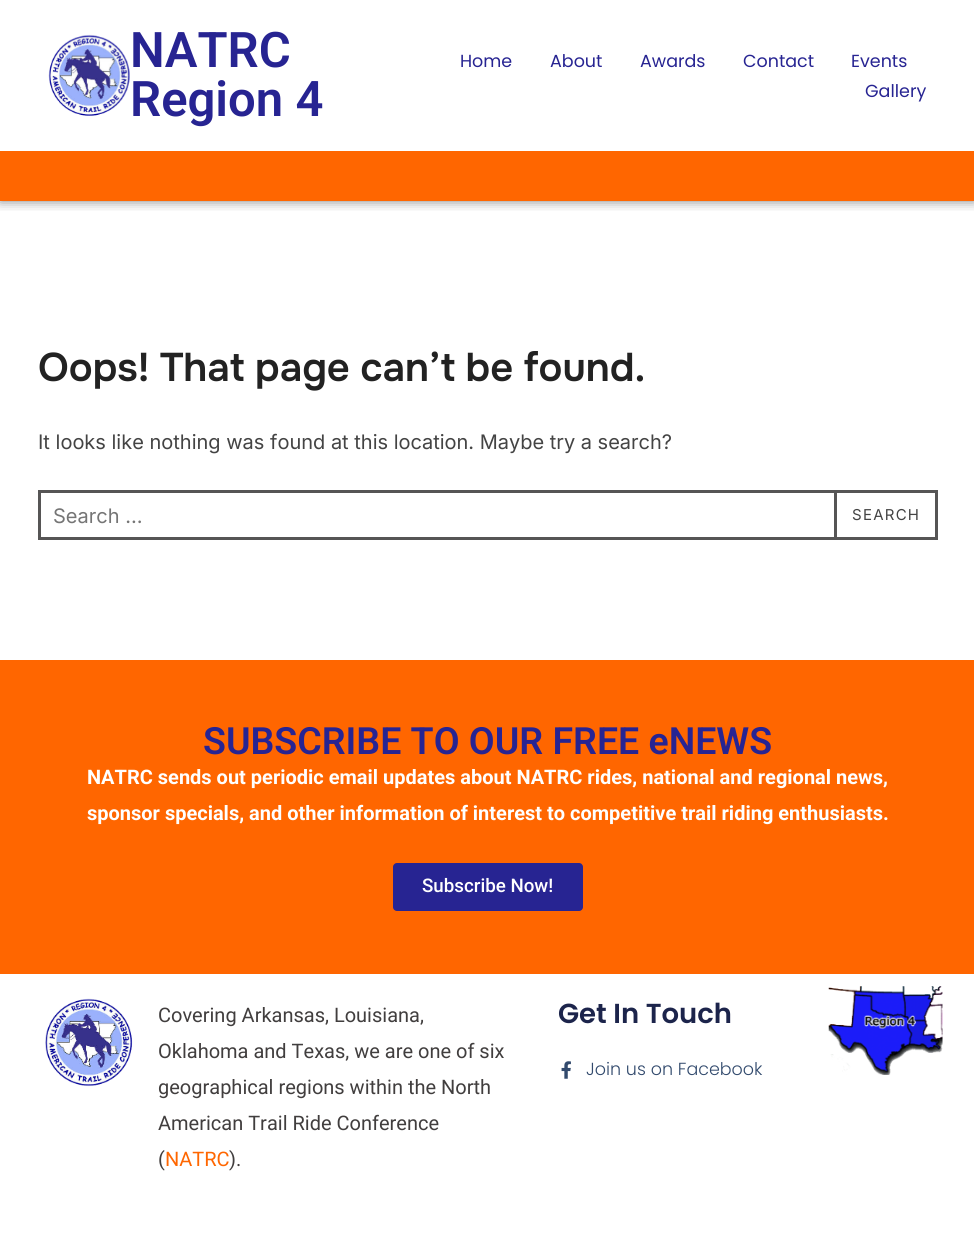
import math
import cairo

surface = cairo.ImageSurface(cairo.FORMAT_RGB24, 974, 1249)
c = cairo.Context(surface)
options = cairo.FontOptions()
options.set_hint_metrics(cairo.HINT_METRICS_OFF)
options.set_hint_style(cairo.HINT_STYLE_NONE)
c.set_font_options(options)
c.set_miter_limit(4)
def C(code):
 c.set_source_rgb(*(v / 255 for v in bytes.fromhex(code[-6:])))
def F(family, size, italic, bold):
 c.select_font_face(family, cairo.FONT_SLANT_ITALIC if italic else cairo.FONT_SLANT_NORMAL, cairo.FONT_WEIGHT_BOLD if bold else cairo.FONT_WEIGHT_NORMAL)
 c.set_font_size(size)
def T(x, y, s):
 c.move_to(x, y)
 c.show_text(s)
def L(x, y, s, letter, word):
 c.move_to(x, y)
 for ch in s:
  c.show_text(ch)
  c.rel_move_to(letter + word * (ch == ' '), 0)
def R(x, y, w, h):
 c.rectangle(x, y, w, h)
 c.fill()
def Q(x, y, w, h, r):
 c.new_sub_path()
 for i, (u, v) in enumerate([(x + w - r, y + h - r), (x + r, y + h - r), (x + r, y + r), (x + w - r, y + r)]):
  c.arc(u, v, r, i * math.pi / 2, (i + 1) * math.pi / 2)
 c.close_path()
def S(x, y, w, h, r, blur, alpha):
 c.push_group_with_content(cairo.CONTENT_ALPHA)
 c.set_operator(cairo.OPERATOR_SOURCE)
 for i in range(15, -16, -2):
  e = blur * i / 6
  if min(w, h) + 2 * e > 0:
   c.set_source_rgba(0, 0, 0, alpha * math.erfc((i - 1) / 8.5) / 2)
   Q(x - e, y - e, w + 2 * e, h + 2 * e, max(0, min(r + e + blur * .6, min(w, h) / 2 + e)))
   c.fill()
 c.mask(c.pop_group())
def I(path, x, y, w, h):
 c.save()
 c.set_source_surface(cairo.ImageSurface.create_from_png(path), x, y)
 c.rectangle(x, y, w, h)
 c.fill()
 c.restore()
C('ffffff')
c.paint()
c.save()
c.rectangle(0,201,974,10)
c.clip()
C('000000')
S(0,0,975,201,0,6,.5)
c.restore()
C('ff6600')
R(0,151,974,50)
I('1.png',48,34,82,82)
F('Roboto SemiBold',49,0,0)
C('272492')
T(130,67,'NATRC')
T(130,116,'Region 4')
F('Poppins',17.5,0,0)
T(460,67,'Home')
T(550,67,'About')
T(640,67,'Awards')
T(743,67,'Contact')
T(851,67,'Events')
T(865,97,'Gallery')
F('Onest SemiBold',40,0,0)
C('222222')
L(38,381,'Oops! That page can’t be found.',0,-.75)
F('Inter',20,0,0)
C('444444')
T(38,449,'It looks like nothing was found at this location. Maybe try a search?')
c.rectangle(39.5,491.5,897,47)
C('565555')
c.set_line_width(3)
c.stroke()
C('757575')
T(53,523,'Search …')
c.rectangle(835.5,491.5,101,47)
C('565555')
c.stroke()
F('Inter',15,0,0)
C('444444')
L(852,520,'SEARCH',1.25,0)
C('ff6600')
R(0,660,974,314)
F('Roboto SemiBold',37.5,0,0)
C('272492')
T(203,754,'SUBSCRIBE TO OUR FREE eNEWS')
F('Roboto',20,0,1)
C('ffffff')
T(87,784,'NATRC sends out periodic email updates about NATRC rides, national and regional news,')
T(87,820,'sponsor specials, and other information of interest to competitive trail riding enthusiasts.')
C('272492')
Q(393,863,190,48,4)
c.fill()
F('Roboto Medium',18.75,0,0)
C('ffffff')
T(422,892,'Subscribe Now!')
I('2.png',45,998,88,89)
F('Roboto',20,0,0)
C('413e3e')
T(158,1022,'Covering Arkansas, Louisiana,')
T(158,1058,'Oklahoma and Texas, we are one of six')
T(158,1094,'geographical regions within the North')
T(158,1130,'American Trail Ride Conference')
T(158,1166,'(')
C('ff6600')
T(165,1166,'NATRC')
C('413e3e')
T(229,1166,').')
F('Poppins SemiBold',27.5,0,0)
C('1c244b')
T(558,1023,'Get In Touch')
I('3.png',561,1061,10,18)
F('Poppins Light',17.5,0,0)
C('324a6d')
T(586,1075,'Join us on Facebook')
I('4.png',828,986,115,89)
surface.write_to_png('o.png')
